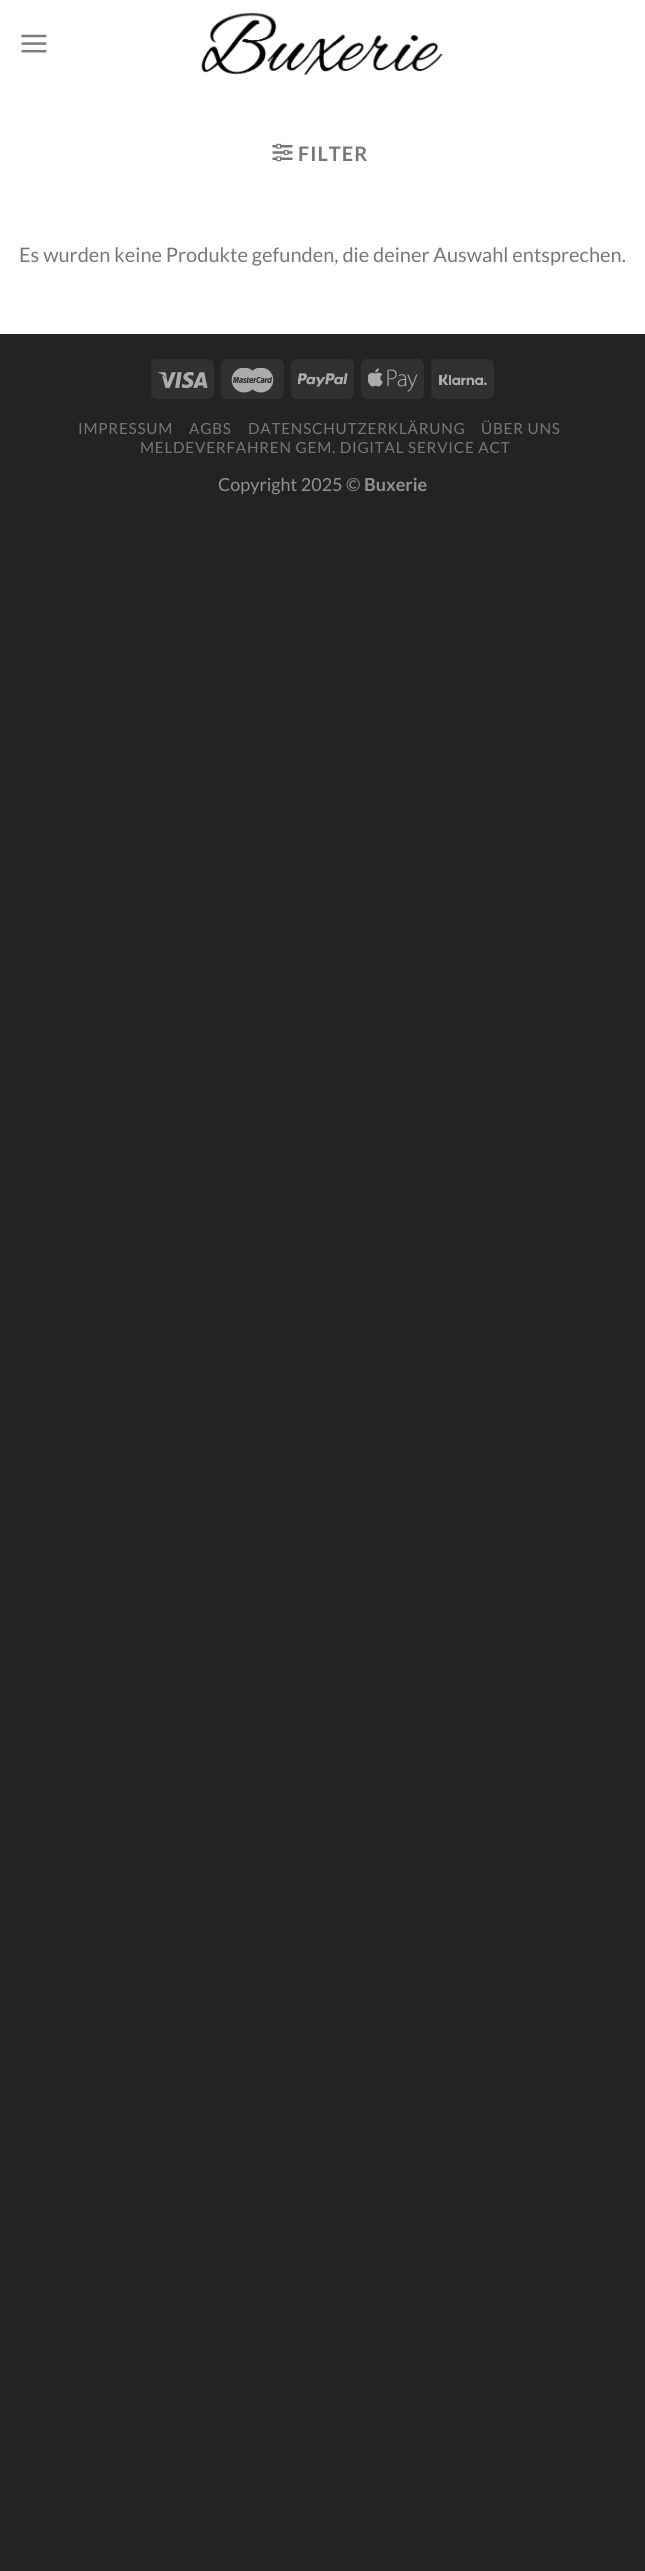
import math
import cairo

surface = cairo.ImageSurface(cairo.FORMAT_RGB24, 645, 2571)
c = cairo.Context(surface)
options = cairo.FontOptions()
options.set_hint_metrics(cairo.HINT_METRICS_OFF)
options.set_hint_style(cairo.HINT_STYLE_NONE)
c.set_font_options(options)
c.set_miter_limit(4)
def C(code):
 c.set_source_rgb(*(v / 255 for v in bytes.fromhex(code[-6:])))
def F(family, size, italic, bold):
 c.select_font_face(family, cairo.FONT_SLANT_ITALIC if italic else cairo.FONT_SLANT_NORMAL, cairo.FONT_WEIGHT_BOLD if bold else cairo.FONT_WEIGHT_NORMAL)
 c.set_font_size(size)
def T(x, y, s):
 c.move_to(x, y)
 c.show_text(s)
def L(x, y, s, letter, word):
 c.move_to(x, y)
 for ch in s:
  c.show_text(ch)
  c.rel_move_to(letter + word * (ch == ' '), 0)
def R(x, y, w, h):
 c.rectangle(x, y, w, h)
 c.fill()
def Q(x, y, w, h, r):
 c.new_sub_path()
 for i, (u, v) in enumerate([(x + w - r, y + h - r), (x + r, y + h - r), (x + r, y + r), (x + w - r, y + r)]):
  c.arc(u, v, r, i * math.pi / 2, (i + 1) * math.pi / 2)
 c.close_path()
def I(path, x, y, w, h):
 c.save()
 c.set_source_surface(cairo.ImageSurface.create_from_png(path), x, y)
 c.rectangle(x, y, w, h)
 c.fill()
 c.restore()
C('232323')
c.paint()
C('ffffff')
R(0,0,645,334)
I('1.png',21,34,26,19)
I('2.png',201,12,242,63)
I('3.png',272,143,21,19)
F('Lato',20,0,1)
C('777777')
L(298,161,'FILTER',1,0)
F('Lato',20,0,0)
T(19,262,'Es wurden keine Produkte gefunden, die deiner Auswahl entsprechen.')
C('303030')
Q(151,359,63,40,6)
c.fill()
I('4.png',158,371,50,18)
Q(221,359,63,40,6)
c.fill()
I('5.png',231,368,43,25)
Q(291,359,63,40,6)
c.fill()
I('6.png',298,373,50,14)
Q(361,359,63,40,6)
c.fill()
I('7.png',368,368,50,24)
Q(431,359,63,40,6)
c.fill()
I('8.png',439,374,48,12)
F('Lato',15.3,0,0)
C('777777')
L(78,434,'IMPRESSUM',.75,0)
L(189,434,'AGBS',.75,0)
L(248,434,'DATENSCHUTZERKLÄRUNG',.75,0)
L(481,434,'ÜBER UNS',.75,0)
L(140,453,'MELDEVERFAHREN GEM. DIGITAL SERVICE ACT',.75,0)
F('Lato',18,0,0)
C('919191')
T(218,491,'Copyright 2025 ©')
F('Lato',18,0,1)
T(364,491,'Buxerie')
surface.write_to_png('o.png')
